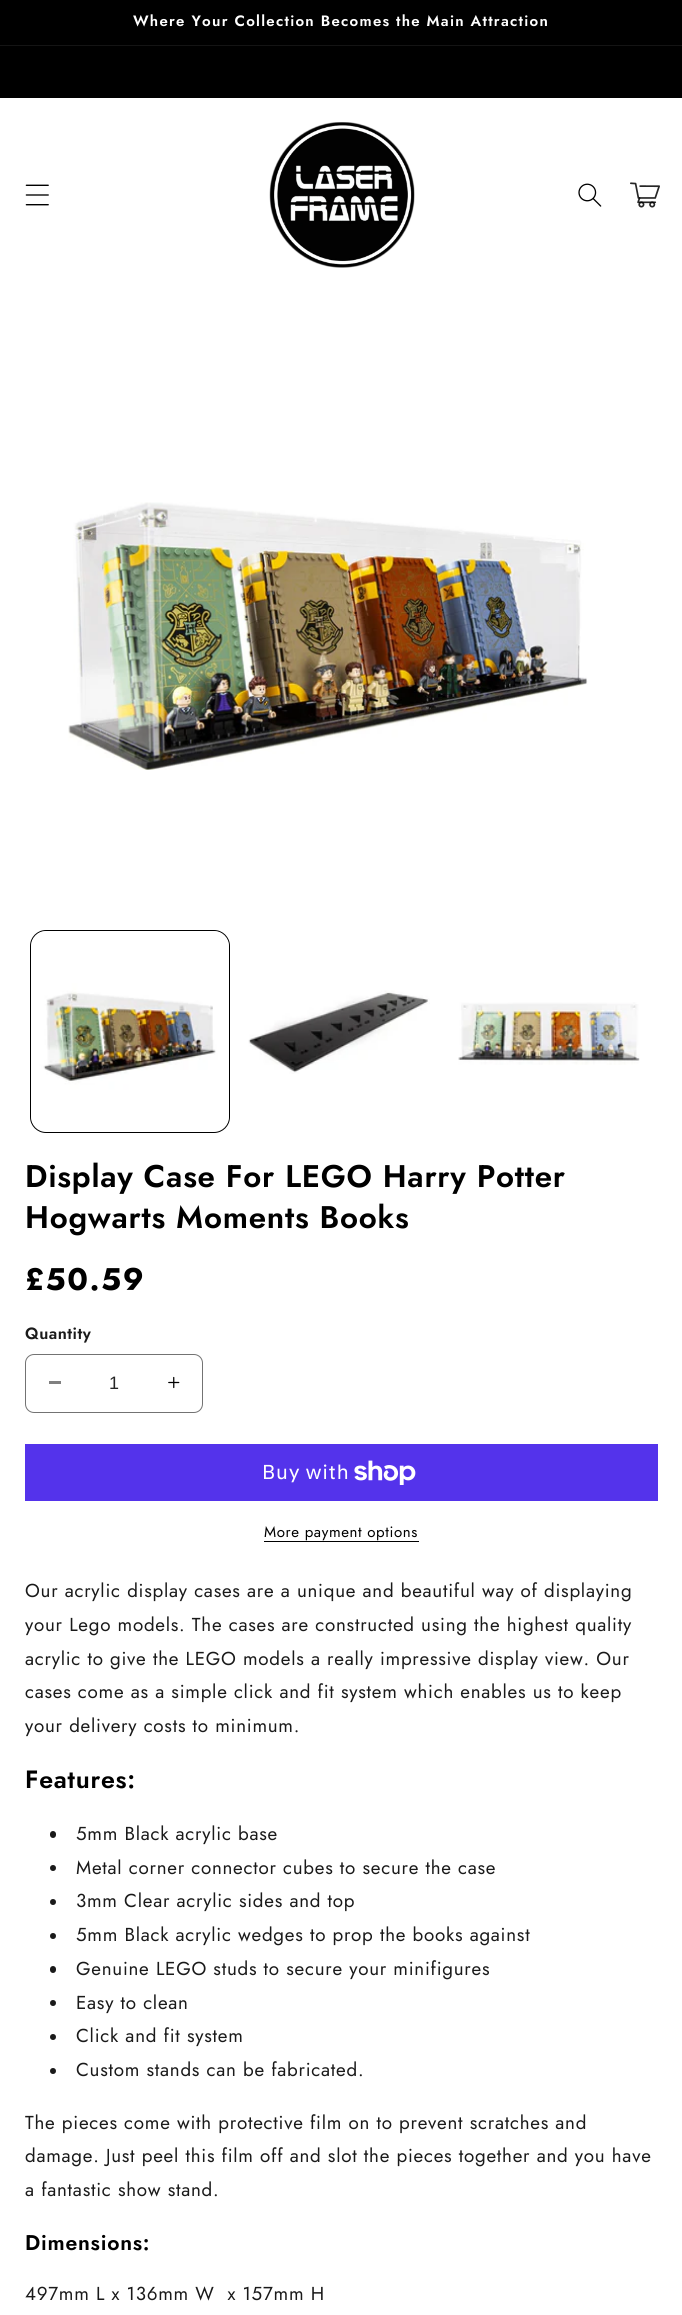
import math
import cairo

surface = cairo.ImageSurface(cairo.FORMAT_RGB24, 682, 2315)
c = cairo.Context(surface)
options = cairo.FontOptions()
options.set_hint_metrics(cairo.HINT_METRICS_OFF)
options.set_hint_style(cairo.HINT_STYLE_NONE)
c.set_font_options(options)
c.set_miter_limit(4)
def C(code):
 c.set_source_rgb(*(v / 255 for v in bytes.fromhex(code[-6:])))
def F(family, size, italic, bold):
 c.select_font_face(family, cairo.FONT_SLANT_ITALIC if italic else cairo.FONT_SLANT_NORMAL, cairo.FONT_WEIGHT_BOLD if bold else cairo.FONT_WEIGHT_NORMAL)
 c.set_font_size(size)
def T(x, y, s):
 c.move_to(x, y)
 c.show_text(s)
def L(x, y, s, letter, word):
 c.move_to(x, y)
 for ch in s:
  c.show_text(ch)
  c.rel_move_to(letter + word * (ch == ' '), 0)
def R(x, y, w, h):
 c.rectangle(x, y, w, h)
 c.fill()
def Q(x, y, w, h, r):
 c.new_sub_path()
 for i, (u, v) in enumerate([(x + w - r, y + h - r), (x + r, y + h - r), (x + r, y + r), (x + w - r, y + r)]):
  c.arc(u, v, r, i * math.pi / 2, (i + 1) * math.pi / 2)
 c.close_path()
def I(path, x, y, w, h):
 c.save()
 c.set_source_surface(cairo.ImageSurface.create_from_png(path), x, y)
 c.rectangle(x, y, w, h)
 c.fill()
 c.restore()
C('ffffff')
c.paint()
C('000000')
R(0,0,682,45)
C('141414')
R(0,45,682,1)
F('Jost SemiBold',15,0,0)
C('ffffff')
L(133,26,'Where Your Collection Becomes the Main Attraction',1.25,0)
C('000000')
R(0,46,682,52)
I('1.png',25,184,24,22)
I('2.png',269,122,146,146)
I('3.png',578,183,24,24)
I('4.png',630,182,30,26)
I('5.png',68,502,520,268)
Q(30.5,930.5,199,202,15.5)
c.set_line_width(1)
c.stroke()
I('6.png',31,931,198,194)
I('7.png',248,990,182,84)
I('8.png',458,1002,182,63)
F('Jost SemiBold',31.25,0,0)
L(25,1187,'Display Case For LEGO Harry Potter',.75,0)
L(25,1228,'Hogwarts Moments Books',.75,0)
F('Jost',31.25,0,1)
L(25,1290,'£50.59',1.5,0)
F('Jost SemiBold',16.25,0,0)
C('1a1a1a')
L(25,1339,'Quantity',.5,0)
C('808080')
R(49,1381,12,3)
I('9.png',168,1376,12,13)
Q(25.5,1354.5,177,58,8.5)
C('737373')
c.stroke()
F('Liberation Sans',18,0,0)
C('262626')
T(109,1389,'1')
C('5433eb')
R(25,1444,633,57)
F('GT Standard',20,0,0)
C('ffffff')
L(262,1479,'Buy with',.75,0)
I('10.png',354,1460,62,25)
F('Jost',15,0,0)
C('000000')
L(264,1537,'More payment options',.6,0)
R(264,1541,155,1)
F('Jost',18.75,0,0)
C('1a1a1a')
L(25,1597,'Our acrylic display cases are a unique and beautiful way of displaying',.75,0)
L(25,1631,'your Lego models. The cases are constructed using the highest quality',.75,0)
L(25,1665,'acrylic to give the LEGO models a really impressive display view. Our',.75,0)
L(25,1698,'cases come as a simple click and fit system which enables us to keep',.75,0)
L(25,1732,'your delivery costs to minimum.',.75,0)
F('Jost SemiBold',25,0,0)
C('000000')
L(25,1788,'Features:',.75,0)
C('1a1a1a')
Q(50,1831,6,7,3)
c.fill()
F('Jost',18.75,0,0)
L(76,1840,'5mm Black acrylic base',.75,0)
c.new_path()
c.arc(53,1868,3,0,2 * math.pi)
c.fill()
L(76,1874,'Metal corner connector cubes to secure the case',.75,0)
c.new_path()
c.arc(53,1902,3,0,2 * math.pi)
c.fill()
L(76,1907,'3mm Clear acrylic sides and top',.75,0)
c.new_path()
c.arc(53,1936,3,0,2 * math.pi)
c.fill()
L(76,1941,'5mm Black acrylic wedges to prop the books against',.75,0)
Q(50,1966,6,7,3)
c.fill()
L(76,1975,'Genuine LEGO studs to secure your minifigures',.75,0)
c.new_path()
c.arc(53,2003,3,0,2 * math.pi)
c.fill()
L(76,2009,'Easy to clean',.75,0)
c.new_path()
c.arc(53,2037,3,0,2 * math.pi)
c.fill()
L(76,2042,'Click and fit system',.75,0)
c.new_path()
c.arc(53,2071,3,0,2 * math.pi)
c.fill()
L(76,2076,'Custom stands can be fabricated.',.75,0)
L(25,2129,'The pieces come with protective film on to prevent scratches and',.75,0)
L(25,2162,'damage. Just peel this film off and slot the pieces together and you have',.75,0)
L(25,2196,'a fantastic show stand.',.75,0)
F('Jost SemiBold',21.25,0,0)
C('000000')
L(25,2250,'Dimensions:',.75,0)
F('Jost',18.75,0,0)
C('1a1a1a')
L(25,2300,'497mm L x 136mm W  x 157mm H',.75,0)
surface.write_to_png('o.png')
